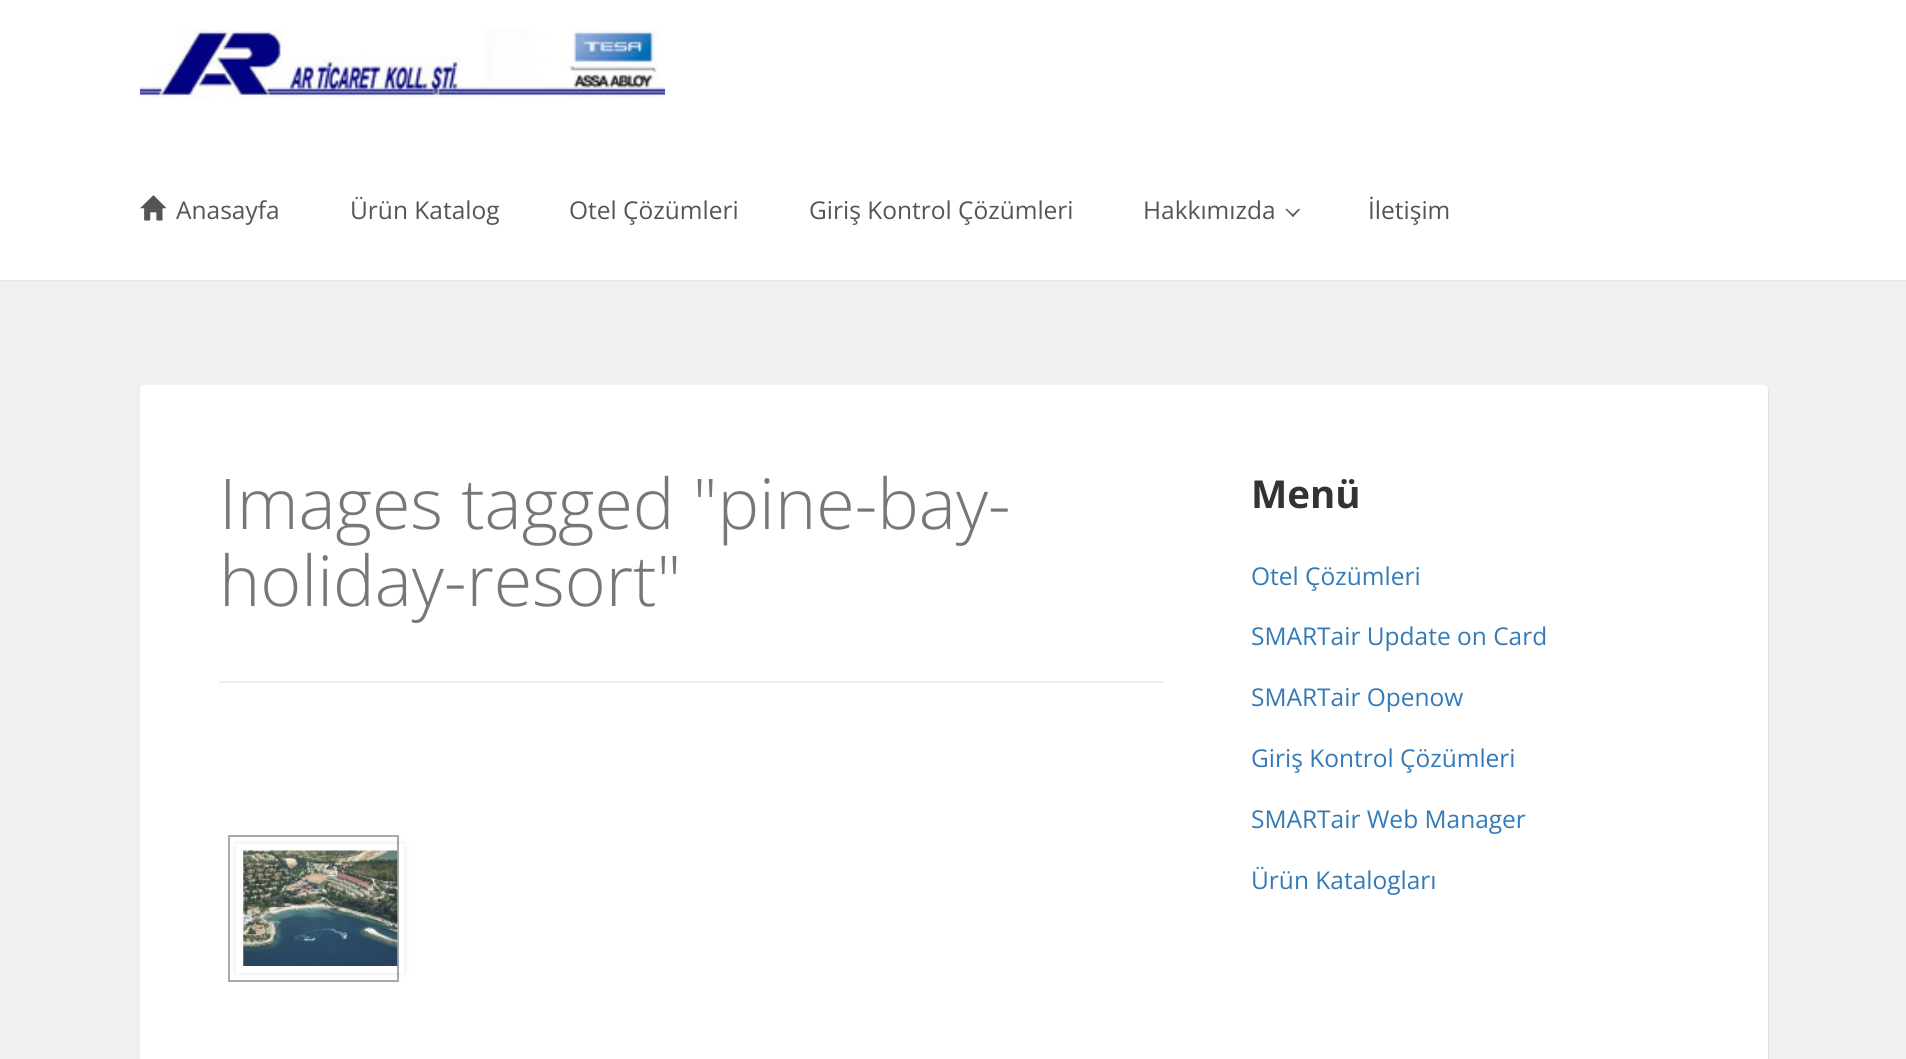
import math
import cairo

surface = cairo.ImageSurface(cairo.FORMAT_RGB24, 1906, 1059)
c = cairo.Context(surface)
options = cairo.FontOptions()
options.set_hint_metrics(cairo.HINT_METRICS_OFF)
options.set_hint_style(cairo.HINT_STYLE_NONE)
c.set_font_options(options)
c.set_miter_limit(4)
def C(code):
 c.set_source_rgb(*(v / 255 for v in bytes.fromhex(code[-6:])))
def F(family, size, italic, bold):
 c.select_font_face(family, cairo.FONT_SLANT_ITALIC if italic else cairo.FONT_SLANT_NORMAL, cairo.FONT_WEIGHT_BOLD if bold else cairo.FONT_WEIGHT_NORMAL)
 c.set_font_size(size)
def T(x, y, s):
 c.move_to(x, y)
 c.show_text(s)
def R(x, y, w, h):
 c.rectangle(x, y, w, h)
 c.fill()
def Q(x, y, w, h, r):
 c.new_sub_path()
 for i, (u, v) in enumerate([(x + w - r, y + h - r), (x + r, y + h - r), (x + r, y + r), (x + w - r, y + r)]):
  c.arc(u, v, r, i * math.pi / 2, (i + 1) * math.pi / 2)
 c.close_path()
def S(x, y, w, h, r, blur, alpha):
 c.push_group_with_content(cairo.CONTENT_ALPHA)
 c.set_operator(cairo.OPERATOR_SOURCE)
 for i in range(15, -16, -2):
  e = blur * i / 6
  if min(w, h) + 2 * e > 0:
   c.set_source_rgba(0, 0, 0, alpha * math.erfc((i - 1) / 8.5) / 2)
   Q(x - e, y - e, w + 2 * e, h + 2 * e, max(0, min(r + e + blur * .6, min(w, h) / 2 + e)))
   c.fill()
 c.mask(c.pop_group())
def I(path, x, y, w, h):
 c.save()
 c.set_source_surface(cairo.ImageSurface.create_from_png(path), x, y)
 c.rectangle(x, y, w, h)
 c.fill()
 c.restore()
C('f0f0f0')
c.paint()
C('000000')
S(0,0,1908,280,0,1,.15)
C('ffffff')
R(0,0,1906,280)
I('1.png',140,28,525,70)
I('2.png',140,195,27,26)
F('Open Sans',24.5,0,0)
C('555555')
T(176,219,'Anasayfa')
T(350,219,'Ürün Katalog')
T(569,219,'Otel Çözümleri')
T(809,219,'Giriş Kontrol Çözümleri')
T(1143,219,'Hakkımızda')
c.new_path()
c.move_to(1299,208.5)
c.line_to(1300,209.5)
c.line_to(1293,217)
c.line_to(1291.5,215.5)
c.close_path()
c.fill()
c.new_path()
c.move_to(1286.5,208.5)
c.line_to(1294,215.5)
c.line_to(1293,217)
c.line_to(1285.5,209.5)
c.close_path()
c.fill()
T(1368,219,'İletişim')
C('e0e0e0')
c.new_path()
c.move_to(143,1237)
c.curve_to(143,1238,145,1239,146,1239)
c.line_to(1765,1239)
c.curve_to(1767,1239,1769,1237,1769,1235)
c.line_to(1769,391)
c.curve_to(1769,390,1768,389,1767,388)
c.line_to(1768,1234)
c.curve_to(1767,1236,1766,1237,1764,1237)
c.close_path()
c.fill()
C('ffffff')
Q(140,385,1628,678,4)
c.fill()
C('eeeeee')
R(219,681,945,2)
F('Open Sans Light',70,0,0)
C('777777')
T(219,529,'Images tagged "pine-bay-')
T(219,606,'holiday-resort"')
c.rectangle(229,836,169,145)
C('a9a9a9')
c.stroke()
c.save()
c.set_fill_rule(cairo.FILL_RULE_EVEN_ODD)
c.new_path()
c.move_to(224,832)
c.line_to(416,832)
c.line_to(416,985)
c.line_to(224,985)
c.close_path()
c.move_to(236,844)
c.line_to(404,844)
c.line_to(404,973)
c.line_to(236,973)
c.close_path()
c.clip()
C('000000')
S(236,844,168,129,0,3.5,.1)
c.restore()
I('3.png',243,850,155,116)
F('Open Sans',38.5,0,1)
C('333333')
T(1251,508,'Menü')
F('Open Sans',24.5,0,0)
C('337ab7')
T(1251,585,'Otel Çözümleri')
T(1251,645,'SMARTair Update on Card')
T(1251,706,'SMARTair Openow')
T(1251,767,'Giriş Kontrol Çözümleri')
T(1251,828,'SMARTair Web Manager')
T(1251,889,'Ürün Katalogları')
surface.write_to_png('o.png')
